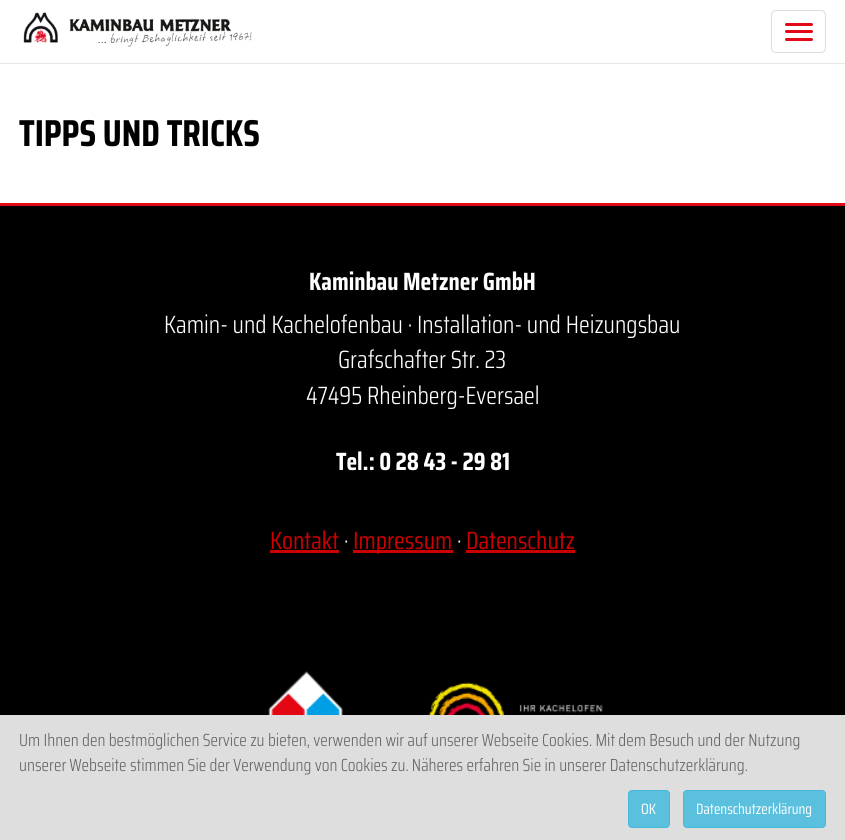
import math
import cairo

surface = cairo.ImageSurface(cairo.FORMAT_RGB24, 845, 840)
c = cairo.Context(surface)
options = cairo.FontOptions()
options.set_hint_metrics(cairo.HINT_METRICS_OFF)
options.set_hint_style(cairo.HINT_STYLE_NONE)
c.set_font_options(options)
c.set_miter_limit(4)
def C(code):
 c.set_source_rgb(*(v / 255 for v in bytes.fromhex(code[-6:])))
def F(family, size, italic, bold):
 c.select_font_face(family, cairo.FONT_SLANT_ITALIC if italic else cairo.FONT_SLANT_NORMAL, cairo.FONT_WEIGHT_BOLD if bold else cairo.FONT_WEIGHT_NORMAL)
 c.set_font_size(size)
def T(x, y, s):
 c.move_to(x, y)
 c.show_text(s)
def R(x, y, w, h):
 c.rectangle(x, y, w, h)
 c.fill()
def Q(x, y, w, h, r):
 c.new_sub_path()
 for i, (u, v) in enumerate([(x + w - r, y + h - r), (x + r, y + h - r), (x + r, y + r), (x + w - r, y + r)]):
  c.arc(u, v, r, i * math.pi / 2, (i + 1) * math.pi / 2)
 c.close_path()
def I(path, x, y, w, h):
 c.save()
 c.set_source_surface(cairo.ImageSurface.create_from_png(path), x, y)
 c.rectangle(x, y, w, h)
 c.fill()
 c.restore()
C('ffffff')
c.paint()
C('e7e7e7')
R(0,63,845,1)
I('1.png',23,12,229,35)
Q(771.5,10.5,54,42,4.5)
C('dddddd')
c.set_line_width(1)
c.stroke()
C('e20917')
Q(785,23,28,3,1.5)
c.fill()
Q(785,30,28,3,1.5)
c.fill()
Q(785,38,28,3,1.5)
c.fill()
F('Saira Condensed',37.5,0,1)
C('000000')
T(19,146,'TIPPS UND TRICKS')
C('e20917')
R(0,203,845,3)
C('000000')
R(0,206,845,509)
F('Saira Condensed',25,0,1)
C('ffffff')
T(309,290,'Kaminbau Metzner GmbH')
F('Saira Condensed Light',25,0,0)
T(164,333,'Kamin- und Kachelofenbau · Installation- und Heizungsbau')
T(338,368,'Grafschafter Str. 23')
T(306,404,'47495 Rheinberg-Eversael')
F('Saira Condensed',25,0,1)
T(336,470,'Tel.: 0 28 43 - 29 81')
F('Saira Condensed',25,0,0)
C('cc0000')
T(270,549,'Kontakt')
R(270,550,69,3)
F('Saira Condensed Light',25,0,0)
C('ffffff')
T(344,549,'·')
C('cc0000')
R(353,550,100,3)
F('Saira Condensed',25,0,0)
T(353,549,'Impressum')
F('Saira Condensed Light',25,0,0)
C('ffffff')
T(457,549,'·')
F('Saira Condensed',25,0,0)
C('cc0000')
T(466,549,'Datenschutz')
R(466,550,109,3)
I('2.png',268,671,75,44)
I('3.png',428,682,180,33)
C('dedede')
R(0,715,845,125)
F('Saira Condensed Light',17.5,0,0)
C('666666')
T(19,746,'Um Ihnen den bestmöglichen Service zu bieten, verwenden wir auf unserer Webseite Cookies. Mit dem Besuch und der Nutzung')
T(19,771,'unserer Webseite stimmen Sie der Verwendung von Cookies zu. Näheres erfahren Sie in unserer Datenschutzerklärung.')
C('5bc0de')
Q(628.5,790.5,41,37,3.5)
c.fill_preserve()
C('46b8da')
c.stroke()
F('Saira Condensed',15,0,0)
C('ffffff')
T(641,814,'OK')
C('5bc0de')
Q(683.5,790.5,142,37,3.5)
c.fill_preserve()
C('46b8da')
c.stroke()
C('ffffff')
T(696,814,'Datenschutzerklärung')
surface.write_to_png('o.png')
